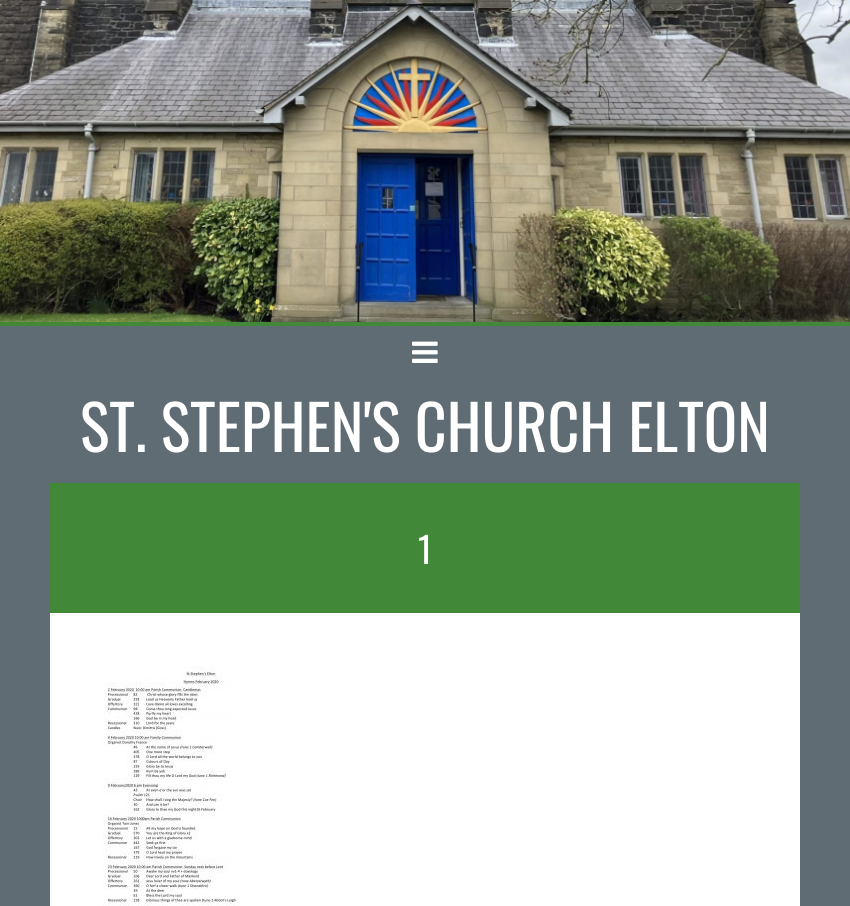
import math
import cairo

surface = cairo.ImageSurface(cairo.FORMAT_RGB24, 850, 906)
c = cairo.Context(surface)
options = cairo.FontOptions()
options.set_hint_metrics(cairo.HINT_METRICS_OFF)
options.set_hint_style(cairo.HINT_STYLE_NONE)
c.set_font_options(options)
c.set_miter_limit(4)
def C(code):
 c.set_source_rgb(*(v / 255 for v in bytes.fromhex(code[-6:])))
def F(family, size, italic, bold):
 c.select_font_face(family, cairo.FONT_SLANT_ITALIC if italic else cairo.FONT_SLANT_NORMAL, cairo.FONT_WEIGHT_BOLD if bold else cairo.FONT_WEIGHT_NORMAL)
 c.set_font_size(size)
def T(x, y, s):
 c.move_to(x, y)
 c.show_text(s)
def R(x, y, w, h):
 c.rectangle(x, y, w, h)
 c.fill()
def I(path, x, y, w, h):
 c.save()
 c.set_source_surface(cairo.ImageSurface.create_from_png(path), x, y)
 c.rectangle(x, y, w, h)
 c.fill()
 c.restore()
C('606c74')
c.paint()
C('418938')
R(0,322,850,4)
I('1.png',0,0,850,322)
I('2.png',412,341,26,22)
F('Oswald',62,0,0)
C('ffffff')
T(80,452,'ST. STEPHEN\'S CHURCH ELTON')
C('418938')
R(50,483,750,130)
F('Oswald',36,0,0)
C('ffffff')
T(418,564,'1')
R(50,613,750,293)
I('3.png',103,666,136,240)
surface.write_to_png('o.png')
